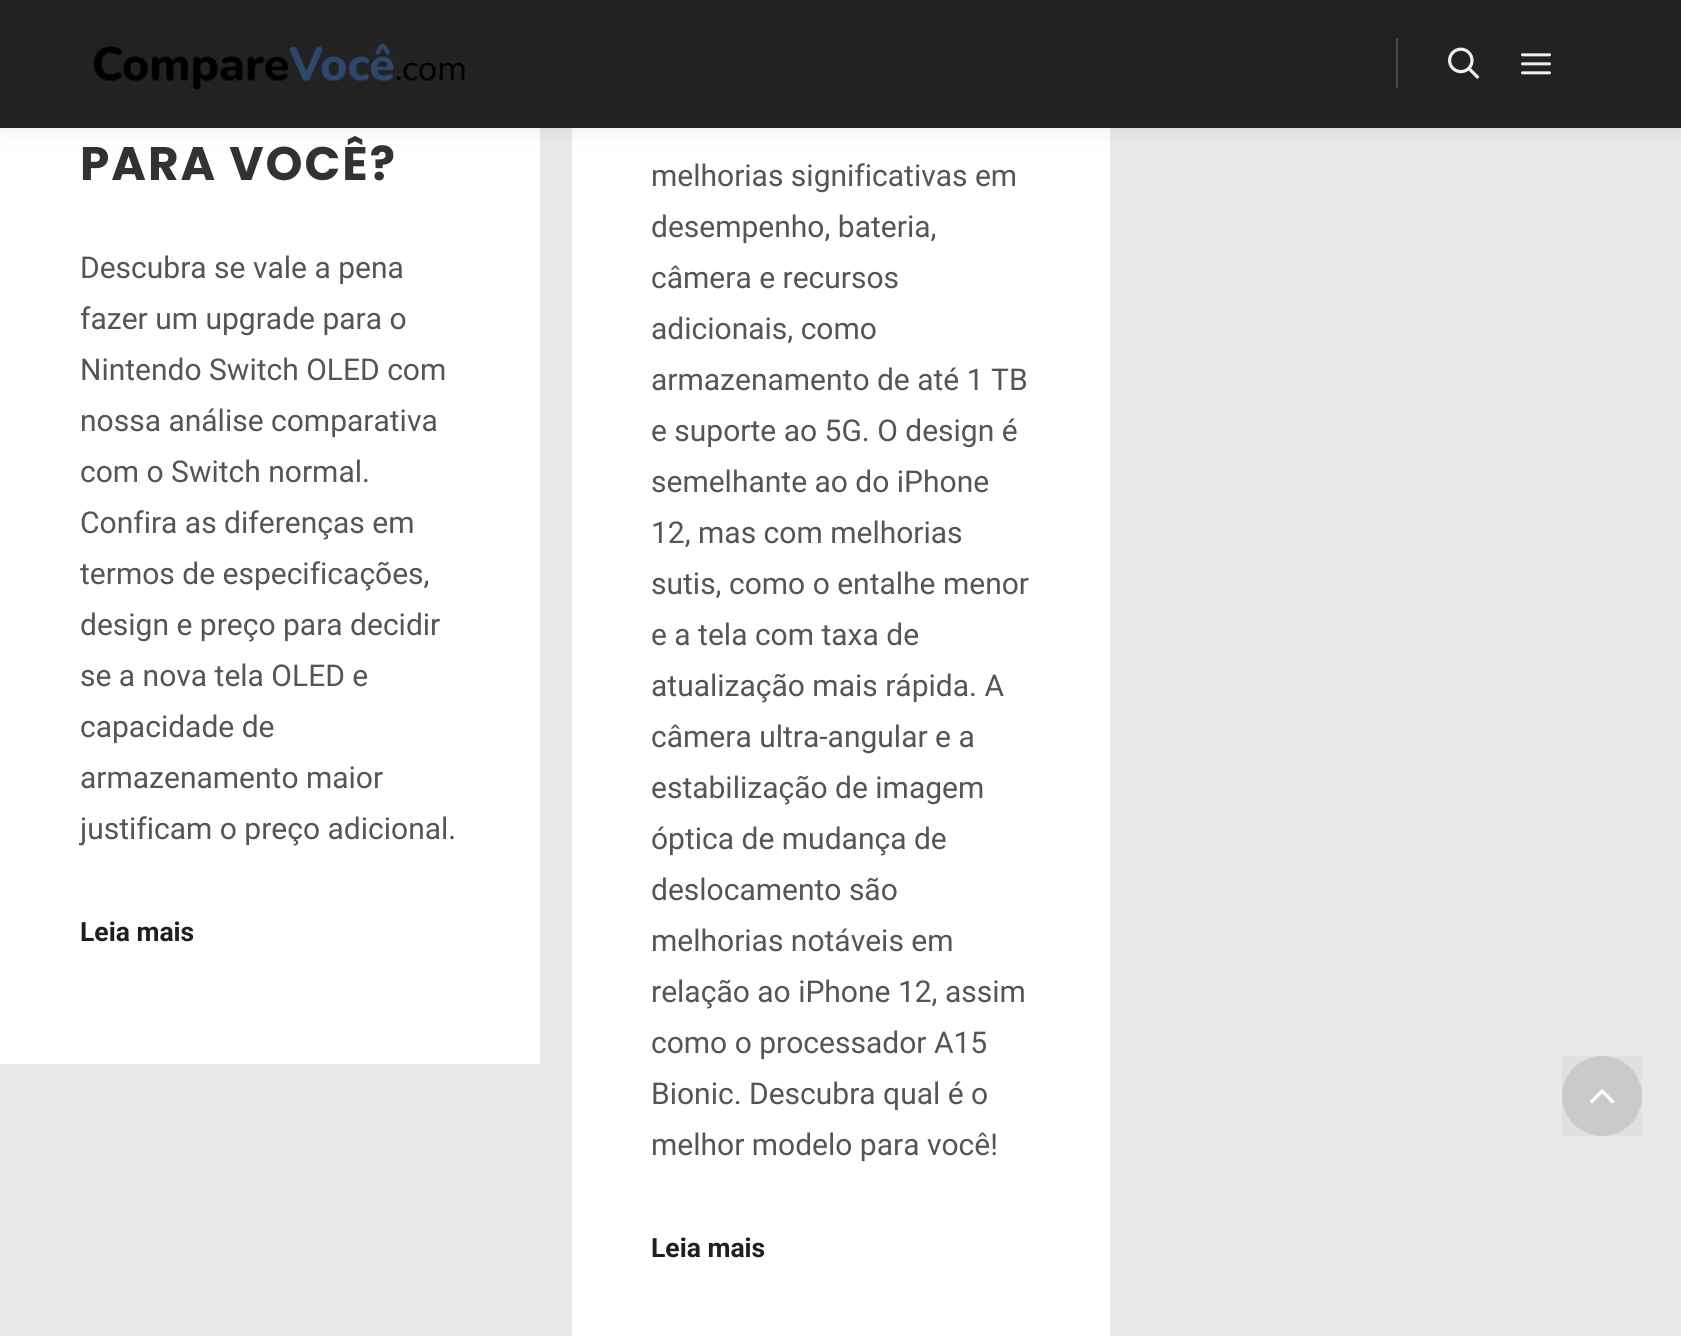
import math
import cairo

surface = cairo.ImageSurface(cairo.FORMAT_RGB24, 1681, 1336)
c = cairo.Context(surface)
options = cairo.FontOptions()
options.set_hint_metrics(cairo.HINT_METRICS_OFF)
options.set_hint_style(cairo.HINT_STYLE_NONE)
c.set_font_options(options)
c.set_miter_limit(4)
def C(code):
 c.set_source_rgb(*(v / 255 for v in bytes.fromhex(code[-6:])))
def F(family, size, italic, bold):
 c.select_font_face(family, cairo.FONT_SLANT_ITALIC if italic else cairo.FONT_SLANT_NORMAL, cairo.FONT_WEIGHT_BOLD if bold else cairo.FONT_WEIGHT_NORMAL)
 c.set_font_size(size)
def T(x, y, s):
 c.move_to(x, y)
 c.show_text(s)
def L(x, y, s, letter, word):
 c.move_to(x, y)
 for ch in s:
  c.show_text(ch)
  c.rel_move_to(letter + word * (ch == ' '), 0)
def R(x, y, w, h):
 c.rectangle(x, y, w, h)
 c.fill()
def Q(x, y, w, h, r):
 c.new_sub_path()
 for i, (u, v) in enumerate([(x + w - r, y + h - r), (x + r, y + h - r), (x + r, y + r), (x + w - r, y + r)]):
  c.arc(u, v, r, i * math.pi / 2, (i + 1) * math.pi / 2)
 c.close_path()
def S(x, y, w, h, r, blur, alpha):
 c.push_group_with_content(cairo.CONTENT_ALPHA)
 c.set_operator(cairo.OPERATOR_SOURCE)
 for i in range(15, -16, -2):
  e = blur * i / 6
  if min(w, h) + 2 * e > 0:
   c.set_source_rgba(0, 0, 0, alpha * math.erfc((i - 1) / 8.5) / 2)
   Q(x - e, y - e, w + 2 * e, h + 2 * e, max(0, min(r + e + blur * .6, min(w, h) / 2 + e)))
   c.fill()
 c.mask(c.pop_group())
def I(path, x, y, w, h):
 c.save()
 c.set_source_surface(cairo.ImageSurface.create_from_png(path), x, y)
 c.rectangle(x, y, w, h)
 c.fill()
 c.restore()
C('e9e9e9')
c.paint()
C('ffffff')
R(0,128,540,936)
R(572,128,538,1208)
C('000000')
S(0,0,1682,128,0,12,.09)
C('222222')
R(0,0,1681,128)
I('1.png',93,43,372,47)
C('4b4b4b')
R(1396,38,2,50)
I('2.png',1448,47,32,32)
I('3.png',1521,53,30,22)
F('Poppins',47,0,1)
C('323232')
L(80,180,'PARA VOCÊ?',2,0)
F('Roboto',30,0,0)
C('555555')
T(80,278,'Descubra se vale a pena')
T(80,329,'fazer um upgrade para o')
T(80,380,'Nintendo Switch OLED com')
T(80,431,'nossa análise comparativa')
T(80,482,'com o Switch normal.')
T(80,533,'Confira as diferenças em')
T(80,584,'termos de especificações,')
T(80,635,'design e preço para decidir')
T(80,686,'se a nova tela OLED e')
T(80,737,'capacidade de')
T(80,788,'armazenamento maior')
T(80,839,'justificam o preço adicional.')
F('Roboto',26.5,0,1)
C('1f1f1f')
T(80,941,'Leia mais')
F('Roboto',30,0,0)
C('555555')
T(651,186,'melhorias significativas em')
T(651,237,'desempenho, bateria,')
T(651,288,'câmera e recursos')
T(651,339,'adicionais, como')
T(651,390,'armazenamento de até 1 TB')
T(651,441,'e suporte ao 5G. O design é')
T(651,492,'semelhante ao do iPhone')
T(651,543,'12, mas com melhorias')
T(651,594,'sutis, como o entalhe menor')
T(651,645,'e a tela com taxa de')
T(651,696,'atualização mais rápida. A')
T(651,747,'câmera ultra-angular e a')
T(651,798,'estabilização de imagem')
T(651,849,'óptica de mudança de')
T(651,900,'deslocamento são')
T(651,951,'melhorias notáveis em')
T(651,1002,'relação ao iPhone 12, assim')
T(651,1053,'como o processador A15')
T(651,1104,'Bionic. Descubra qual é o')
T(651,1155,'melhor modelo para você!')
F('Roboto',26.5,0,1)
C('1f1f1f')
T(651,1257,'Leia mais')
C('d2d2d2')
c.new_path()
c.arc(1602,1096,40,0,2 * math.pi)
c.fill()
c.set_source_rgba(0,0,0,0.04)
R(1562,1056,80,80)
I('4.png',1590,1089,25,15)
surface.write_to_png('o.png')
